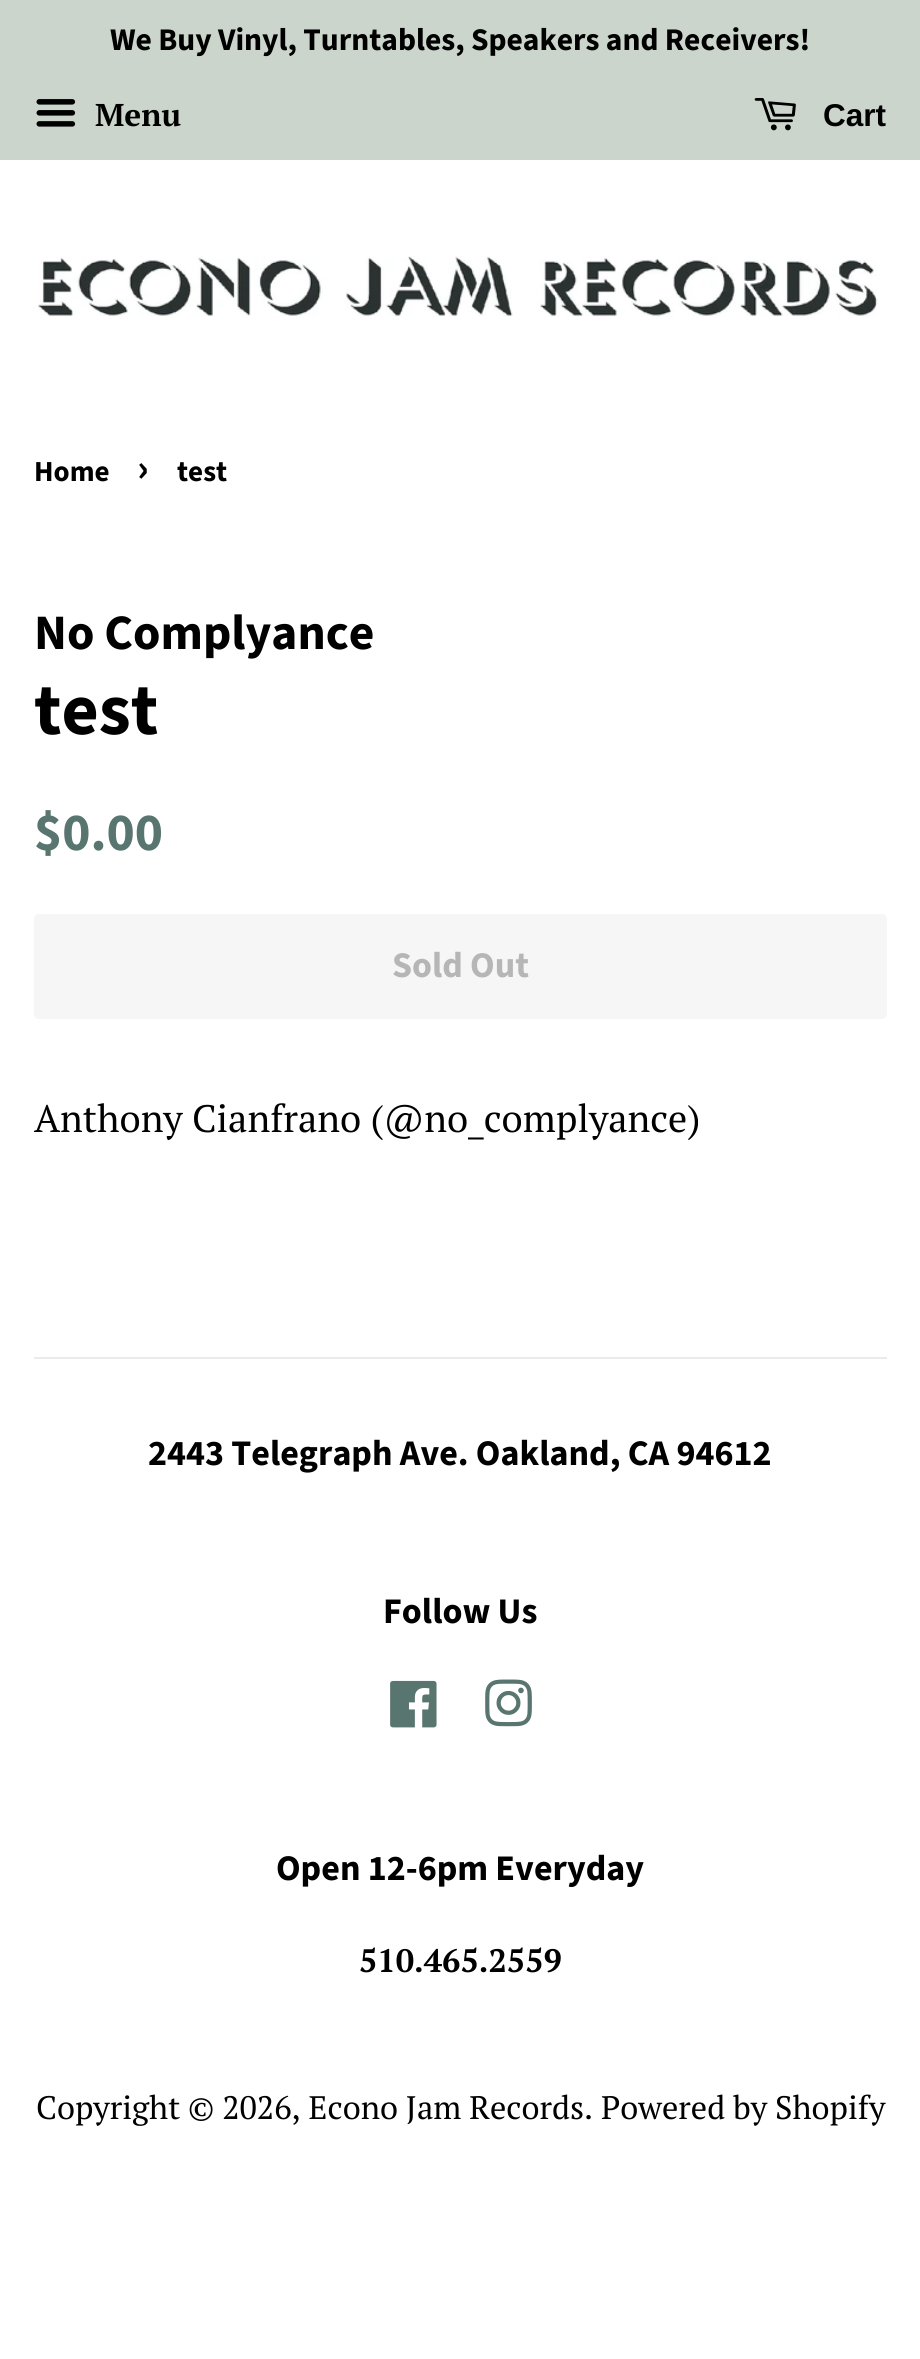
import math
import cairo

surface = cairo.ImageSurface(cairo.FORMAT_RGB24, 920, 2359)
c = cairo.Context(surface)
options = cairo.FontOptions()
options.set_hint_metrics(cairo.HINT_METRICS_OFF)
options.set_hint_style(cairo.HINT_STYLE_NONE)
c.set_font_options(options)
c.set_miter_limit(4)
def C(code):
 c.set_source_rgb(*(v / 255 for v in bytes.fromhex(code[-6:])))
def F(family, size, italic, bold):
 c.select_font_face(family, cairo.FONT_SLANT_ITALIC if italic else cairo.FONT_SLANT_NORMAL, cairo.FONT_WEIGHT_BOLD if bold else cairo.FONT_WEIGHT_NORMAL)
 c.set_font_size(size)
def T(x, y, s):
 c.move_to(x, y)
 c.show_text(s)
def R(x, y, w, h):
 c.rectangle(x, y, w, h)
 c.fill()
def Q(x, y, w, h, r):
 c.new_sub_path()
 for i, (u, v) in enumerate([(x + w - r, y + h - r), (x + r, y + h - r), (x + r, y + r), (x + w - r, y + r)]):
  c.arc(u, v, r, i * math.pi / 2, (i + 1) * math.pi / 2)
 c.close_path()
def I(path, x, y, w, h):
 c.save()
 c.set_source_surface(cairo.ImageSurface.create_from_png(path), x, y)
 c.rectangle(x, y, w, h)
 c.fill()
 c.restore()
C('ffffff')
c.paint()
C('cbd5cc')
R(0,0,920,160)
F('Source Sans Pro',31.5,0,1)
C('000000')
T(110,50,'We Buy Vinyl, Turntables, Speakers and Receivers!')
I('1.png',36,99,40,28)
F('PT Serif',31.5,0,1)
T(95,126,'Menu')
I('2.png',754,98,42,33)
F('Liberation Sans',31.5,0,1)
T(823,126,'Cart')
I('3.png',38,256,840,61)
F('Source Sans Pro',29,0,1)
T(34,481,'Home')
F('Source Sans Pro',40,0,1)
T(137,481,'›')
F('Source Sans Pro',29,0,1)
T(177,481,'test')
F('Source Sans Pro',49.5,0,1)
T(34,649,'No Complyance')
F('Source Sans Pro',72,0,1)
T(34,734,'test')
F('Source Sans Pro',53.5,0,1)
C('59756f')
T(34,850,'$0.00')
C('f6f6f6')
Q(34,914,853,105,5)
c.fill()
F('Source Sans Pro',36,0,1)
C('b6b6b6')
T(392,977,'Sold Out')
F('PT Serif',38.25,0,0)
C('000000')
T(34,1132,'Anthony Cianfrano (@no_complyance)')
C('ebebeb')
R(34,1357,853,2)
F('Source Sans Pro',36,0,1)
C('000000')
T(148,1465,'2443 Telegraph Ave. Oakland, CA 94612')
T(383,1623,'Follow Us')
I('4.png',390,1680,47,48)
I('5.png',485,1679,47,48)
T(276,1880,'Open 12-6pm Everyday')
F('PT Serif',32.5,0,1)
T(359,1972,'510.465.2559')
F('PT Serif',32.5,0,0)
T(36,2119,'Copyright © 2026, Econo Jam Records. Powered by Shopify')
surface.write_to_png('o.png')
